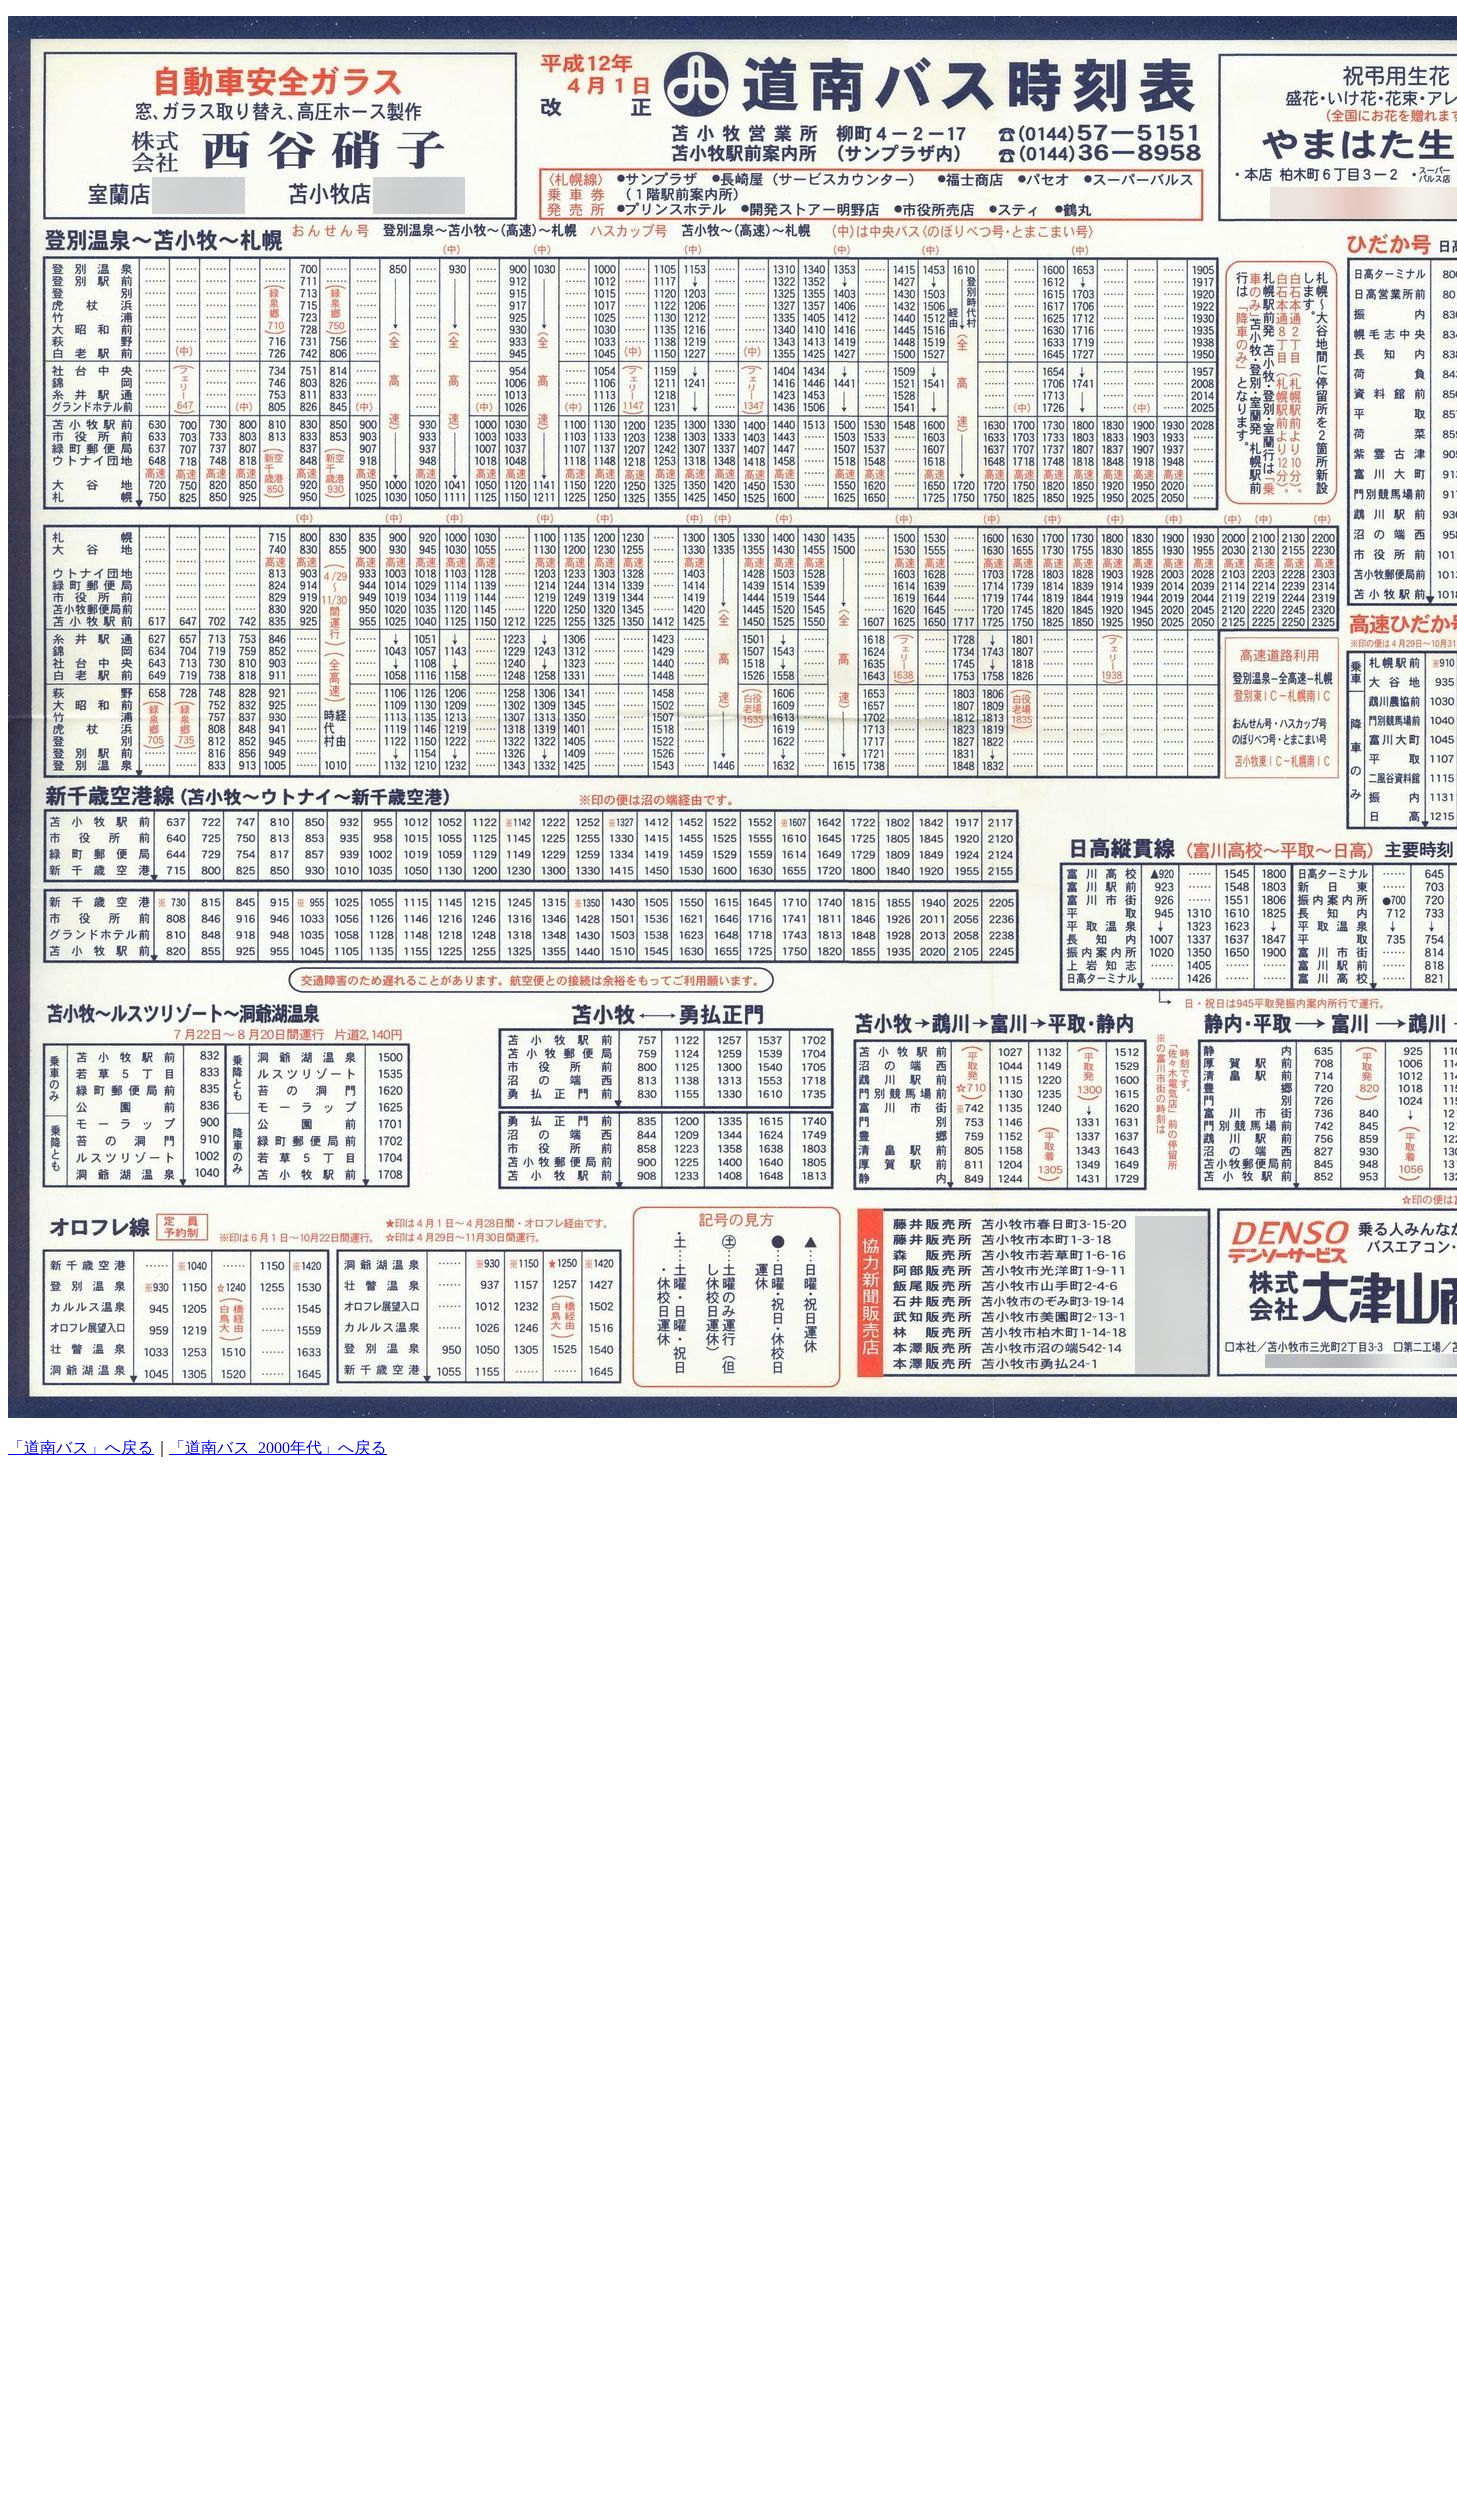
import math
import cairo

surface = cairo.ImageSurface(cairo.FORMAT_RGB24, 1457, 2495)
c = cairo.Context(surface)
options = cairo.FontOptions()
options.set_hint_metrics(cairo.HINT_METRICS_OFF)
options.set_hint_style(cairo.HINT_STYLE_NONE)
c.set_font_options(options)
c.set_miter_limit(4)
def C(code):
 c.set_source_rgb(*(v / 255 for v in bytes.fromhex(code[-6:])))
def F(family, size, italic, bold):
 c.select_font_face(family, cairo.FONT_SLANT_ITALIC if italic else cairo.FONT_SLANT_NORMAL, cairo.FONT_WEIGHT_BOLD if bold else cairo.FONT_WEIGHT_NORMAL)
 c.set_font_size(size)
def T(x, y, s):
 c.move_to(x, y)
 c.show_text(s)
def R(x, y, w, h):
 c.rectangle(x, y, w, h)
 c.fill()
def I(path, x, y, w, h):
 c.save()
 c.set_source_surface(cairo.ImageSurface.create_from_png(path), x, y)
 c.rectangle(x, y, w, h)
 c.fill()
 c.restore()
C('ffffff')
c.paint()
I('1.png',8,16,1449,1402)
C('0000ee')
R(8,1454,146,1)
F('WenQuanYi Zen Hei Medium',16,0,0)
T(8,1453,'「道南バス」へ戻る')
C('000000')
T(154,1453,'｜')
C('0000ee')
R(169,1454,218,1)
T(169,1453,'「道南バス')
F('Liberation Serif',16,0,0)
T(258,1453,'2000')
F('WenQuanYi Zen Hei Medium',16,0,0)
T(290,1453,'年代」へ戻る')
surface.write_to_png('o.png')
